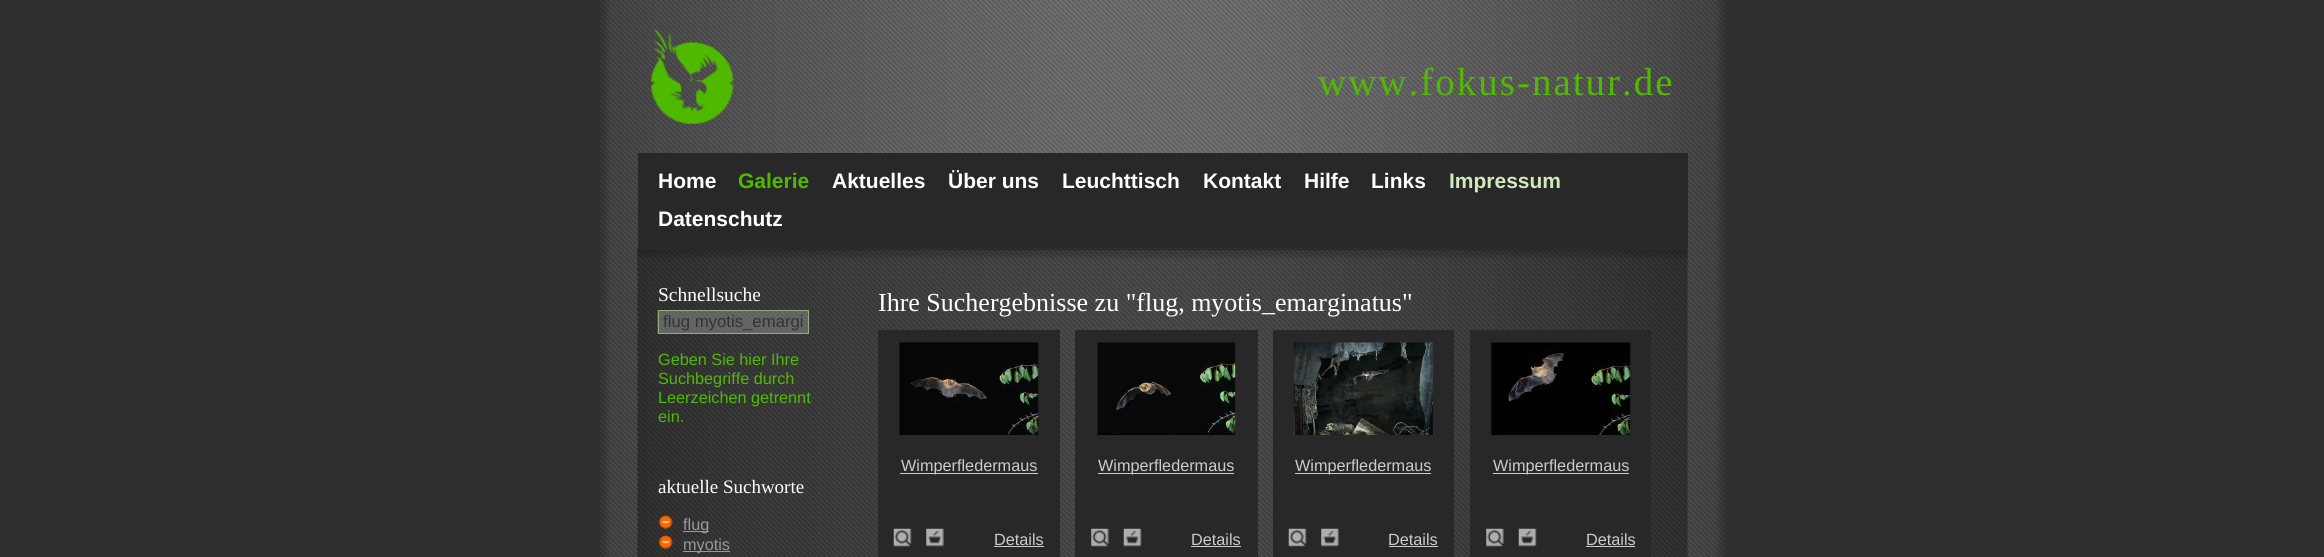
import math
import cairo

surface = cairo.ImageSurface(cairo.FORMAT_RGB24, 2324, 557)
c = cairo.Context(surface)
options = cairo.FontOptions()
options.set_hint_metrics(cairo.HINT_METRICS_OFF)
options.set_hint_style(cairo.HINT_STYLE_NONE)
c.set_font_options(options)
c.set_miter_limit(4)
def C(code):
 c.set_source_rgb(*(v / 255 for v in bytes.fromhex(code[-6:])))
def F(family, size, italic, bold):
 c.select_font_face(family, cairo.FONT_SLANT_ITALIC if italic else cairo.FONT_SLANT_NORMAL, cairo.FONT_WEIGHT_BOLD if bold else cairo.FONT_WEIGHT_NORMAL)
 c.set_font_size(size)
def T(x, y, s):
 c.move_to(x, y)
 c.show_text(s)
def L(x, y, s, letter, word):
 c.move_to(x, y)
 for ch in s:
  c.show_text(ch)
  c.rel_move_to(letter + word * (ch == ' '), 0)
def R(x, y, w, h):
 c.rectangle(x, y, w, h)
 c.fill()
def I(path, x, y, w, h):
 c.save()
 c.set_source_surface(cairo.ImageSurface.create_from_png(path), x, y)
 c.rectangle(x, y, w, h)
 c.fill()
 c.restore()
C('302f2f')
c.paint()
I('1.png',600,0,1125,557)
I('2.png',651,28,83,96)
F('Liberation Serif',39,0,0)
C('4fba00')
L(1318,95,'www.fokus-natur.de',2,0)
C('282828')
R(638,153,1050,96)
F('Liberation Sans',21,0,1)
C('ffffff')
T(658,188,'Home')
C('4fba00')
T(738,188,'Galerie')
C('ffffff')
T(832,188,'Aktuelles')
T(948,188,'Über uns')
T(1062,188,'Leuchttisch')
T(1203,188,'Kontakt')
T(1304,188,'Hilfe')
T(1371,188,'Links')
C('d1eab9')
T(1449,188,'Impressum')
C('ffffff')
T(658,226,'Datenschutz')
I('3.png',637,248,1051,309)
I('4.png',637,249,1051,15)
F('Liberation Serif',19.5,0,0)
T(658,301,'Schnellsuche')
I('5.png',657,310,151,24)
c.rectangle(658.5,310.5,150,23)
C('95af77')
c.set_line_width(1)
c.stroke()
F('Liberation Sans',16.75,0,0)
C('333333')
T(663,327,'flug myotis_emargi')
F('Liberation Sans',16.25,0,0)
C('4fba00')
T(658,365,'Geben Sie hier Ihre')
T(658,384,'Suchbegriffe durch')
T(658,403,'Leerzeichen getrennt')
T(658,422,'ein.')
F('Liberation Serif',19,0,0)
C('ffffff')
T(658,493,'aktuelle Suchworte')
I('6.png',658,515,15,14)
C('999999')
R(683,531,26,1)
F('Liberation Sans',16.25,0,0)
T(683,530,'flug')
I('6.png',658,535,15,14)
R(683,551,47,1)
T(683,550,'myotis')
F('Liberation Serif',26,0,0)
C('ffffff')
T(878,311,'Ihre Suchergebnisse zu "flug, myotis_emarginatus"')
C('282828')
R(878,330,182,227)
I('7.png',899,342,141,93)
C('cccccc')
R(900,473,138,1)
F('Liberation Sans',16.25,0,0)
T(901,471,'Wimperfledermaus')
I('8.png',893,528,19,19)
I('9.png',926,528,18,19)
T(994,545,'Details')
R(994,546,50,1)
C('282828')
R(1075,330,183,227)
I('10.png',1097,342,139,93)
C('cccccc')
R(1098,473,136,1)
T(1098,471,'Wimperfledermaus')
I('11.png',1091,528,18,19)
I('12.png',1123,528,19,19)
T(1191,545,'Details')
R(1191,546,50,1)
C('282828')
R(1273,330,181,227)
I('13.png',1293,342,141,93)
C('cccccc')
R(1295,473,136,1)
T(1295,471,'Wimperfledermaus')
I('14.png',1288,528,19,19)
I('9.png',1321,528,18,19)
T(1388,545,'Details')
R(1389,546,49,1)
C('282828')
R(1470,330,181,227)
I('15.png',1491,342,141,93)
C('cccccc')
R(1493,473,136,1)
T(1493,471,'Wimperfledermaus')
I('11.png',1486,528,18,19)
I('16.png',1518,528,19,19)
T(1586,545,'Details')
R(1586,546,49,1)
surface.write_to_png('o.png')
